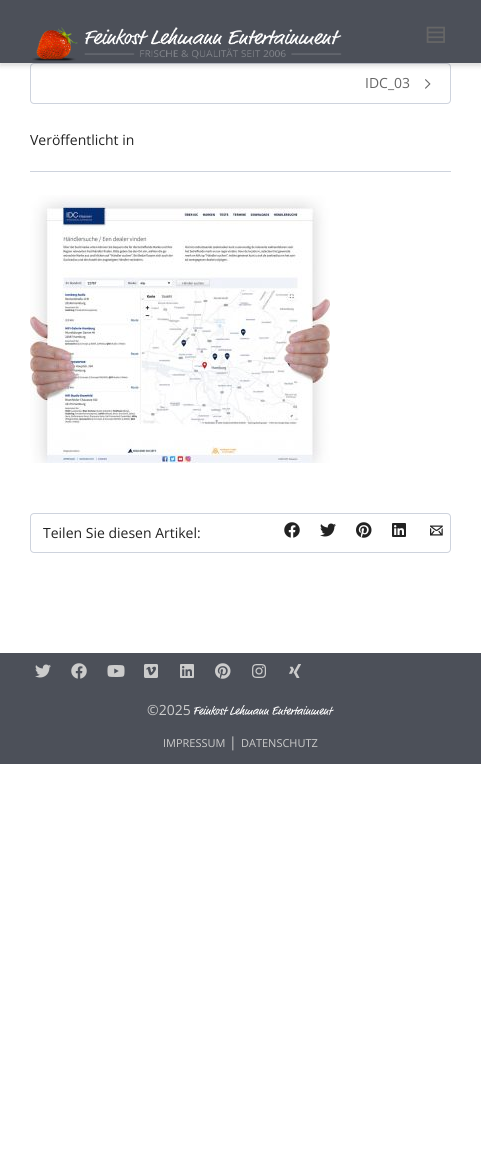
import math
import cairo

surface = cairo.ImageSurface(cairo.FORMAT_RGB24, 481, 1155)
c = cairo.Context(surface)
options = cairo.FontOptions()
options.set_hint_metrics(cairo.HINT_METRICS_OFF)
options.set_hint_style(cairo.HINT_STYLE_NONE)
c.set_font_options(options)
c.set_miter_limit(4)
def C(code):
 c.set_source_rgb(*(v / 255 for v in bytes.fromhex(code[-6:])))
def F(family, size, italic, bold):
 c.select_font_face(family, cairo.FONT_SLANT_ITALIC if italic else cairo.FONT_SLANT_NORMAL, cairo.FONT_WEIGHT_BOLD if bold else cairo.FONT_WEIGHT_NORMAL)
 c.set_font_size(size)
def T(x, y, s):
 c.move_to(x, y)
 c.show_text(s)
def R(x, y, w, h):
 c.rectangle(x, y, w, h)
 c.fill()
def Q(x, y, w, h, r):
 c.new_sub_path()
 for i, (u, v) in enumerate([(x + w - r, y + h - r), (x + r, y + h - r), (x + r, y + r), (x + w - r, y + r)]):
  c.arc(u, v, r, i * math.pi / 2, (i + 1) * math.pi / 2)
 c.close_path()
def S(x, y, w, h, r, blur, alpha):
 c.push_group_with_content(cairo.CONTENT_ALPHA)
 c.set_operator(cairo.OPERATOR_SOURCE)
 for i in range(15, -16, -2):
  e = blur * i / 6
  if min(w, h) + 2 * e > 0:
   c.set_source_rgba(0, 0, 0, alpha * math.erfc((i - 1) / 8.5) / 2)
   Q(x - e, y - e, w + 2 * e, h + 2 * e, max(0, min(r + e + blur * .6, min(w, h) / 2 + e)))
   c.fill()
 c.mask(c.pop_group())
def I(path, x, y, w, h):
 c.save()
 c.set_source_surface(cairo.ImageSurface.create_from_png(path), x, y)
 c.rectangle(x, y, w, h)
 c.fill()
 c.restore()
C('ffffff')
c.paint()
Q(30.5,63.5,420,40,3.5)
C('ced3dd')
c.set_line_width(1)
c.stroke()
C('000000')
S(0,3,481,63,0,2.5,.1)
S(0,3,481,63,0,2.5,.05)
C('4c5059')
R(0,0,481,63)
I('1.png',32,27,310,34)
I('2.png',426,26,19,17)
F('Open Sans',14,0,0)
C('666666')
T(365,88,'IDC_03')
I('3.png',425,79,6,10)
C('ced3dd')
R(30,171,421,1)
C('222222')
T(30,145,'Veröffentlicht in')
I('4.png',30,195,300,268)
Q(30.5,513.5,420,39,3.5)
C('ced3dd')
c.stroke()
C('222222')
T(43,538,'Teilen Sie diesen Artikel:')
I('5.png',284,522,16,16)
I('6.png',320,523,16,14)
I('7.png',356,522,16,16)
I('8.png',392,523,14,14)
I('9.png',430,525,13,11)
C('4c5059')
R(0,653,481,111)
I('10.png',35,664,16,14)
I('11.png',71,663,16,16)
I('12.png',107,665,18,12)
I('13.png',144,664,14,14)
I('14.png',180,664,14,14)
I('15.png',215,663,16,16)
I('16.png',252,664,14,14)
I('17.png',289,664,12,14)
C('cccccc')
T(147,715,'©2025')
I('18.png',194,705,140,10)
F('Open Sans',11,0,0)
T(163,747,'IMPRESSUM')
F('Open Sans',14,0,0)
T(229,747,'|')
F('Open Sans',11,0,0)
T(241,747,'DATENSCHUTZ')
surface.write_to_png('o.png')
